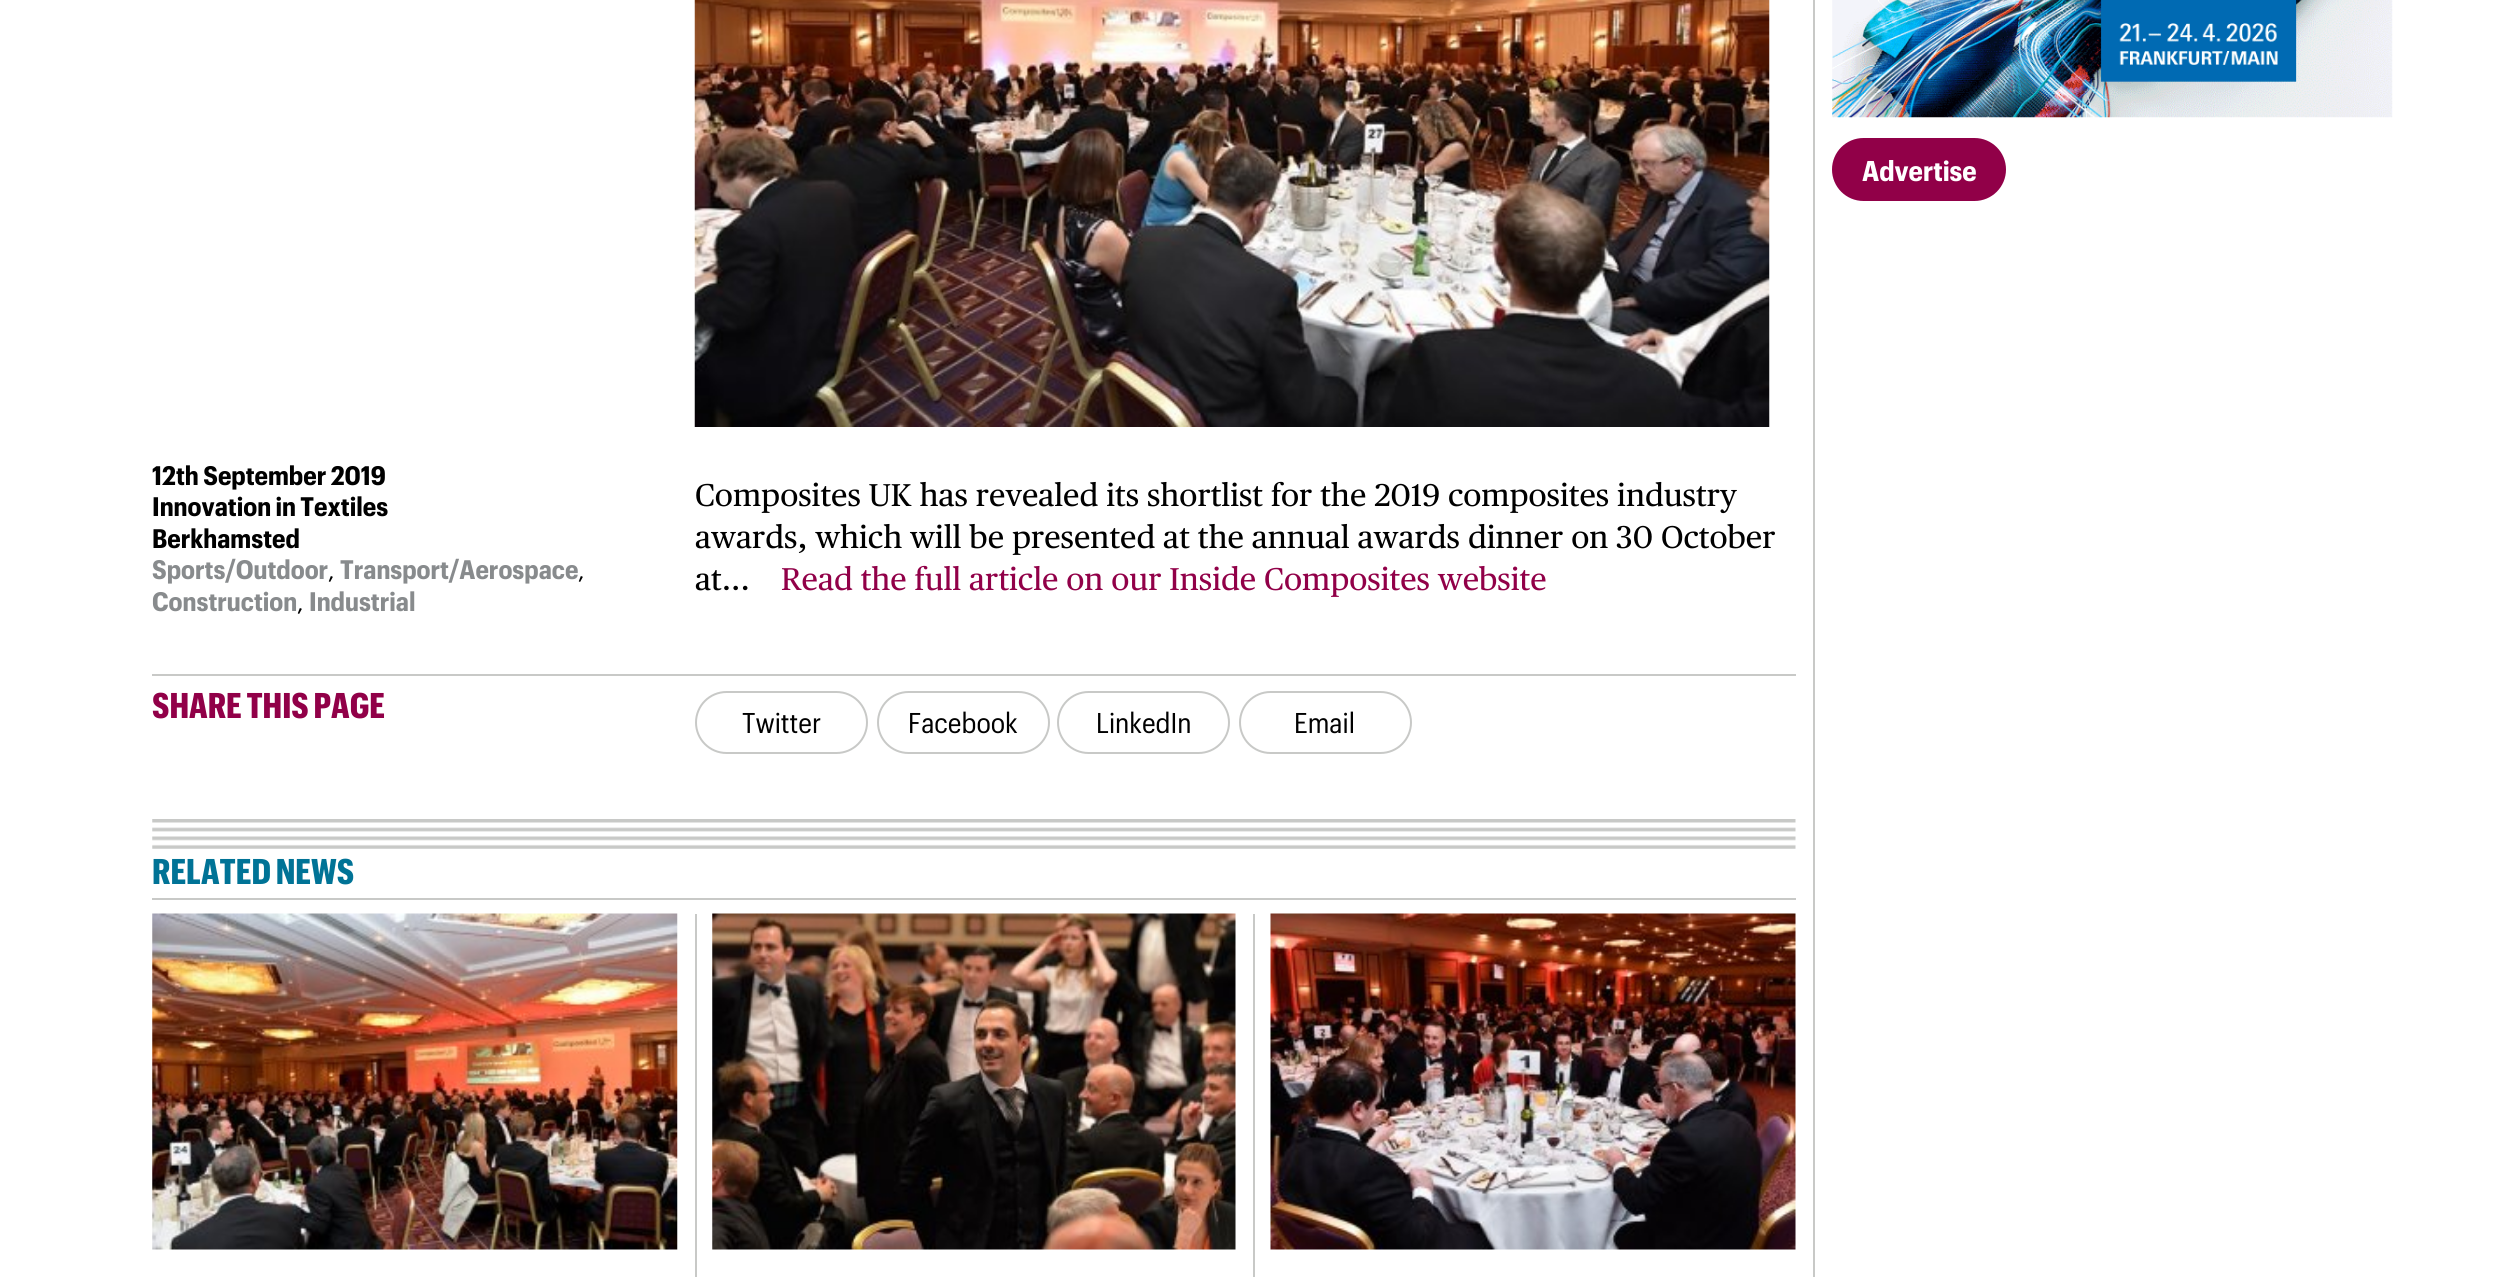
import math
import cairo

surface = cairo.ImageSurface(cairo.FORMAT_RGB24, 2509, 1277)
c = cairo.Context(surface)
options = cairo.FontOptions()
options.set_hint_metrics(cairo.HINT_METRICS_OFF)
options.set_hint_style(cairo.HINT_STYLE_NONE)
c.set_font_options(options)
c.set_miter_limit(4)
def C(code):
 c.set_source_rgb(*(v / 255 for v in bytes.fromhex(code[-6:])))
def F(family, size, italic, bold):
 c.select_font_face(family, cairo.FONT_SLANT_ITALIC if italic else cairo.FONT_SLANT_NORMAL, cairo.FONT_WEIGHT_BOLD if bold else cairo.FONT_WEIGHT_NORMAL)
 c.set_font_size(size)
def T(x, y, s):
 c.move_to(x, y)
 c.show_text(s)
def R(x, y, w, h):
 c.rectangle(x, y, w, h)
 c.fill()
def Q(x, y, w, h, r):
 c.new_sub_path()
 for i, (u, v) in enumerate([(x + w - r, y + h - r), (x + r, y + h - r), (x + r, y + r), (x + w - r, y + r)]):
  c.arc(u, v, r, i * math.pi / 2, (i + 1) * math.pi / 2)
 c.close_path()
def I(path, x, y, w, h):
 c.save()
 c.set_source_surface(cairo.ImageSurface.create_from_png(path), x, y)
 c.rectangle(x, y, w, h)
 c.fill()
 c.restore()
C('ffffff')
c.paint()
I('1.png',1832,0,561,118)
C('910048')
Q(1833,139,172,61,30.5)
c.fill_preserve()
c.stroke()
F('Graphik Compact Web',28,0,1)
C('ffffff')
T(1862,181,'Advertise')
C('c8c9c7')
R(1813,0,2,1277)
I('2.png',694,0,1076,427)
F('Graphik Compact Web',26.25,0,1)
C('000000')
T(152,485,'12th September 2019')
T(152,516,'Innovation in Textiles')
T(152,548,'Berkhamsted')
C('888b8d')
T(152,579,'Sports/Outdoor')
F('Graphik Compact Web',26.25,0,0)
C('000000')
T(328,579,',')
F('Graphik Compact Web',26.25,0,1)
C('888b8d')
T(340,579,'Transport/Aerospace')
F('Graphik Compact Web',26.25,0,0)
C('000000')
T(578,579,',')
F('Graphik Compact Web',26.25,0,1)
C('888b8d')
T(152,611,'Construction')
F('Graphik Compact Web',26.25,0,0)
C('000000')
T(297,611,',')
F('Graphik Compact Web',26.25,0,1)
C('888b8d')
T(309,611,'Industrial')
F('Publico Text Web',31.5,0,0)
C('000000')
T(695,506,'Composites UK has revealed its shortlist for the 2019 composites industry')
T(695,548,'awards, which will be presented at the annual awards dinner on 30 October')
T(695,590,'at...')
C('910048')
T(781,590,'Read the full article on our Inside Composites website')
C('c8c9c7')
R(152,674,1644,2)
F('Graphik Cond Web',35,0,1)
C('910048')
T(152,718,'SHARE THIS PAGE')
Q(696,692,171,61,30.5)
C('c8c9c7')
c.stroke()
F('Graphik Compact Web',28,0,0)
C('000000')
T(742,733,'Twitter')
Q(878,692,171,61,30.5)
C('c8c9c7')
c.stroke()
C('000000')
T(908,733,'Facebook')
Q(1058,692,171,61,30.5)
C('c8c9c7')
c.stroke()
C('000000')
T(1096,733,'LinkedIn')
Q(1240,692,171,61,30.5)
C('c8c9c7')
c.stroke()
C('000000')
T(1294,733,'Email')
I('3.png',152,819,1644,30)
C('c8c9c7')
R(152,898,1644,2)
F('Graphik Cond Web',35,0,1)
C('007396')
T(152,884,'RELATED NEWS')
C('c8c9c7')
R(695,914,2,363)
I('4.png',152,913,526,337)
R(1253,914,2,363)
I('5.png',712,913,524,337)
I('6.png',1270,913,526,337)
surface.write_to_png('o.png')
